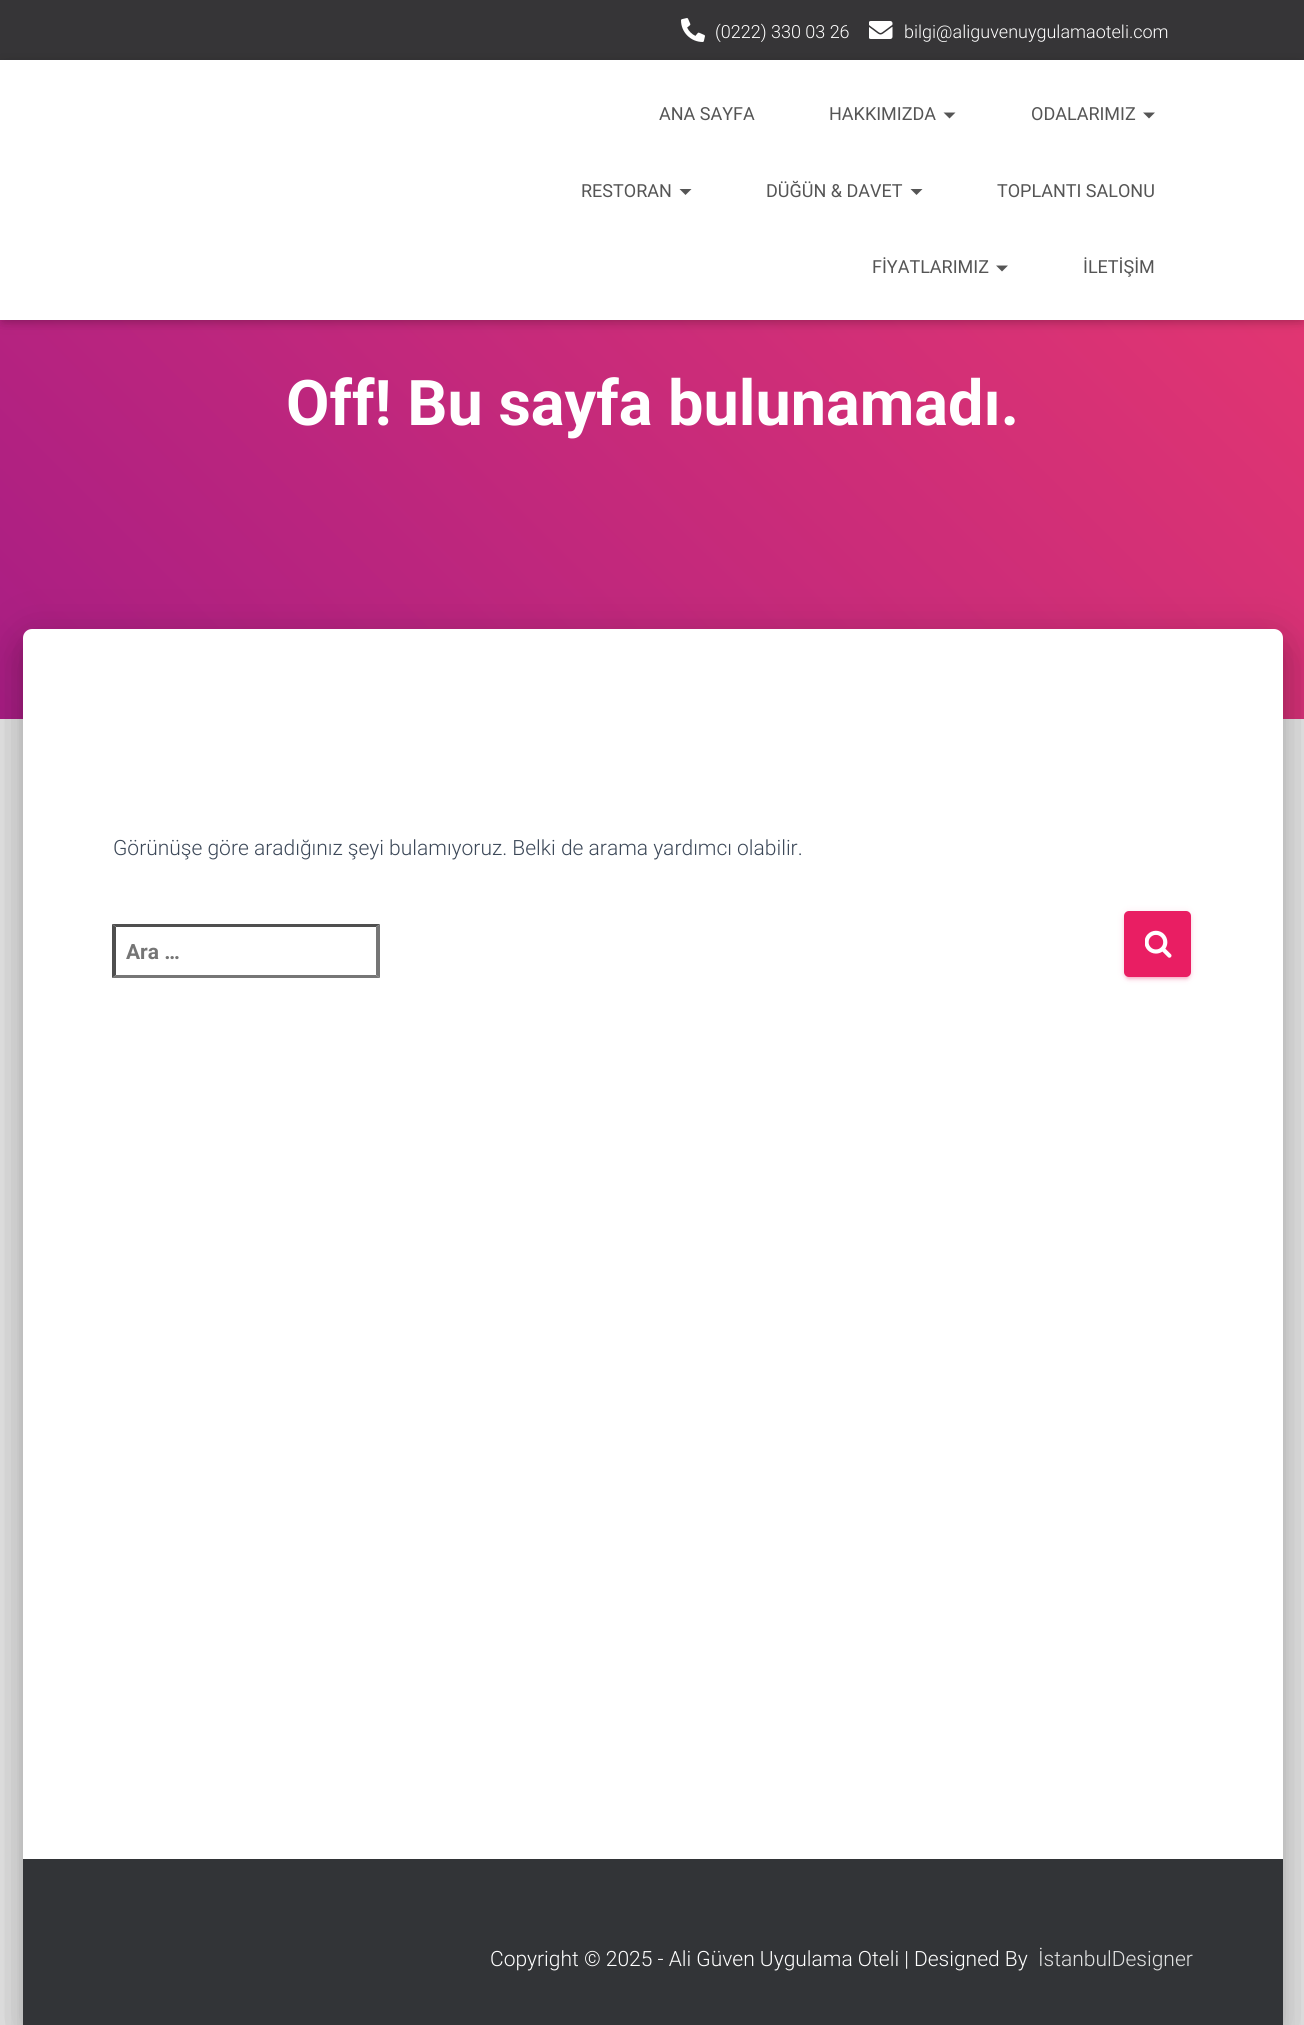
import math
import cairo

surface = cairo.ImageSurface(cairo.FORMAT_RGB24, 1304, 2025)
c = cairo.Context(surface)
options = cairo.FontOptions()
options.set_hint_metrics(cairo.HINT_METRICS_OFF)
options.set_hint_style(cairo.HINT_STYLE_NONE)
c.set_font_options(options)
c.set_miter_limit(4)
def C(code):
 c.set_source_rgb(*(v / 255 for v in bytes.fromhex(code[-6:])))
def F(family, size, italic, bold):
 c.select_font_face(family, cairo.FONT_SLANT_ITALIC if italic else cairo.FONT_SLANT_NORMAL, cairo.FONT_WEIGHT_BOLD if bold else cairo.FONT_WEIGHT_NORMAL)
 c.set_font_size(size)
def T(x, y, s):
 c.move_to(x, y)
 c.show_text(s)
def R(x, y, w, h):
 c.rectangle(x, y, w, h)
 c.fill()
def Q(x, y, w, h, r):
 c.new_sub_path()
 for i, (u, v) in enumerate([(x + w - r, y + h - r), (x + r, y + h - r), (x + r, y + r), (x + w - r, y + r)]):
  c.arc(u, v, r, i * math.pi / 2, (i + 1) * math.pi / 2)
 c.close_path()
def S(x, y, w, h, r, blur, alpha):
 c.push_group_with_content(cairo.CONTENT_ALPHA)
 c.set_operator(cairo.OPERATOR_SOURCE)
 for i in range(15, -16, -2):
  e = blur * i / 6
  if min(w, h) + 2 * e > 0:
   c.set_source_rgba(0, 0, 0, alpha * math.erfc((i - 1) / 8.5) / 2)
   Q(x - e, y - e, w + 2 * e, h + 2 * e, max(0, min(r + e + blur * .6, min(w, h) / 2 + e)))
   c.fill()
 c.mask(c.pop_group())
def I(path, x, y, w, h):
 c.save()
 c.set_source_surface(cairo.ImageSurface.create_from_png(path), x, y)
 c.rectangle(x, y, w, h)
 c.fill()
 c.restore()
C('e5e5e5')
c.paint()
C('363537')
R(0,0,1304,60)
I('1.png',681,18,24,24)
F('Roboto Light',18,0,0)
C('ffffff')
T(715,38,'(0222) 330 03 26')
I('2.png',869,21,24,18)
T(904,38,'bilgi@aliguvenuygulamaoteli.com')
gradient = cairo.LinearGradient(162,880,1143,-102)
gradient.add_color_stop_rgba(0,0.659,0.114,0.518,1)
gradient.add_color_stop_rgba(1,0.918,0.224,0.435,1)
c.set_source(gradient)
R(0,320,1304,399)
C('000000')
S(3,69,1299,254,0,4,.1)
S(0,62,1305,259,0,7.5,.12)
S(9,71,1287,241,0,7.5,.42)
C('ffffff')
R(0,60,1304,260)
F('Roboto',18,0,0)
C('555555')
T(659,120,'ANA SAYFA')
T(829,120,'HAKKIMIZDA')
c.new_path()
c.move_to(943.5,112.5)
c.line_to(955.5,112.5)
c.line_to(949.5,118.5)
c.close_path()
c.fill()
T(1031,120,'ODALARIMIZ')
c.new_path()
c.move_to(1143,112.5)
c.line_to(1155,112.5)
c.line_to(1149,118.5)
c.close_path()
c.fill()
T(581,197,'RESTORAN')
c.new_path()
c.move_to(679.5,189)
c.line_to(691.5,189)
c.line_to(685.5,195)
c.close_path()
c.fill()
T(766,197,'DÜĞÜN & DAVET')
c.new_path()
c.move_to(910.5,189)
c.line_to(922.5,189)
c.line_to(916.5,195)
c.close_path()
c.fill()
T(997,197,'TOPLANTI SALONU')
T(872,273,'FİYATLARIMIZ')
c.new_path()
c.move_to(996,265.5)
c.line_to(1008,265.5)
c.line_to(1002,271.5)
c.close_path()
c.fill()
T(1083,273,'İLETİŞİM')
F('Roboto',63,0,1)
C('ffffff')
T(286,425,'Off! Bu sayfa bulunamadı.')
C('000000')
S(30,648,1245,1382,1.5,7.5,.2)
S(15,630,1275,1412,17,22.5,.12)
S(20,650,1266,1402,12,18,.14)
C('ffffff')
c.new_path()
c.move_to(32,629)
c.line_to(1274,629)
c.curve_to(1279,629,1283,633,1283,638)
c.line_to(1283,2025)
c.line_to(23,2025)
c.line_to(23,638)
c.curve_to(23,633,27,629,32,629)
c.close_path()
c.fill()
F('Roboto Light',21,0,0)
C('3c4858')
T(113,855,'Görünüşe göre aradığınız şeyi bulamıyoruz. Belki de arama yardımcı olabilir.')
C('4f4f4f')
c.new_path()
c.move_to(112,924)
c.line_to(380,924)
c.line_to(376,927)
c.line_to(116,927)
c.close_path()
c.fill()
C('767676')
c.new_path()
c.move_to(380,924)
c.line_to(380,978)
c.line_to(376,975)
c.line_to(376,927)
c.close_path()
c.fill()
c.new_path()
c.move_to(380,978)
c.line_to(112,978)
c.line_to(116,975)
c.line_to(376,975)
c.close_path()
c.fill()
C('4f4f4f')
c.new_path()
c.move_to(112,978)
c.line_to(112,924)
c.line_to(116,927)
c.line_to(116,975)
c.close_path()
c.fill()
F('Roboto',21,0,1)
C('757575')
T(126,959,'Ara …')
C('e91e63')
S(1124,912,67,66,5,4,.12)
S(1127,918,61,60,1.5,1,.2)
S(1124,914,67,66,5,1.5,.14)
C('e91e63')
Q(1124,911,67,66,5)
c.fill()
I('3.png',1145,930,27,28)
C('323437')
R(23,1859,1260,166)
F('Roboto Light',21,0,0)
C('ffffff')
T(490,1966,'Copyright © 2025 - Ali Güven Uygulama Oteli | Designed By')
C('e2e3e3')
T(1038,1966,'İstanbulDesigner')
surface.write_to_png('o.png')
